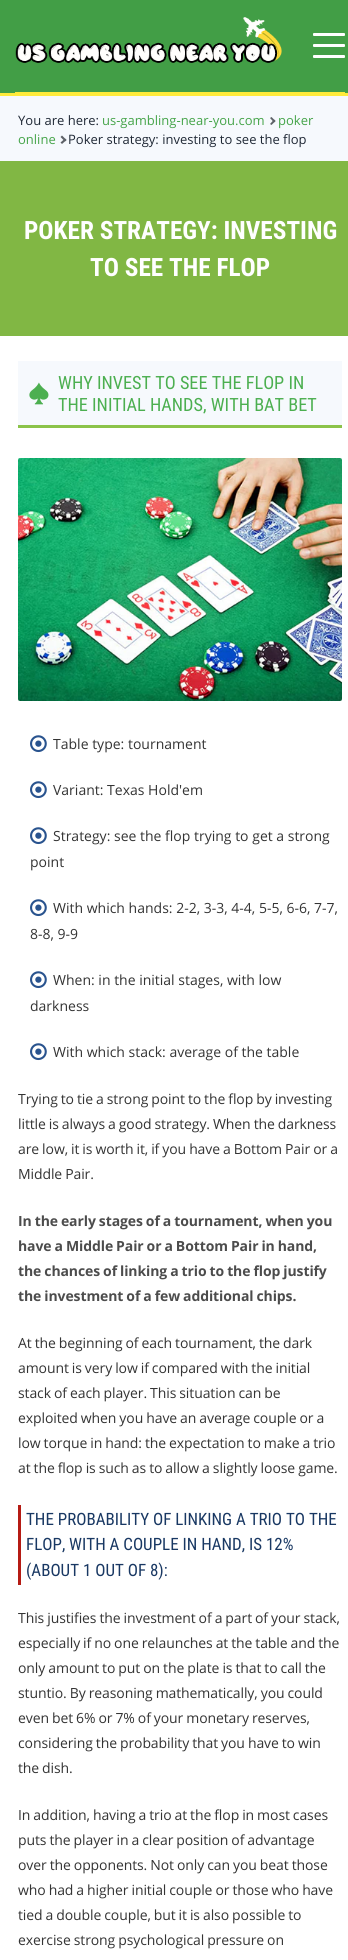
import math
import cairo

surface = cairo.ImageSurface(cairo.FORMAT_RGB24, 348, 1960)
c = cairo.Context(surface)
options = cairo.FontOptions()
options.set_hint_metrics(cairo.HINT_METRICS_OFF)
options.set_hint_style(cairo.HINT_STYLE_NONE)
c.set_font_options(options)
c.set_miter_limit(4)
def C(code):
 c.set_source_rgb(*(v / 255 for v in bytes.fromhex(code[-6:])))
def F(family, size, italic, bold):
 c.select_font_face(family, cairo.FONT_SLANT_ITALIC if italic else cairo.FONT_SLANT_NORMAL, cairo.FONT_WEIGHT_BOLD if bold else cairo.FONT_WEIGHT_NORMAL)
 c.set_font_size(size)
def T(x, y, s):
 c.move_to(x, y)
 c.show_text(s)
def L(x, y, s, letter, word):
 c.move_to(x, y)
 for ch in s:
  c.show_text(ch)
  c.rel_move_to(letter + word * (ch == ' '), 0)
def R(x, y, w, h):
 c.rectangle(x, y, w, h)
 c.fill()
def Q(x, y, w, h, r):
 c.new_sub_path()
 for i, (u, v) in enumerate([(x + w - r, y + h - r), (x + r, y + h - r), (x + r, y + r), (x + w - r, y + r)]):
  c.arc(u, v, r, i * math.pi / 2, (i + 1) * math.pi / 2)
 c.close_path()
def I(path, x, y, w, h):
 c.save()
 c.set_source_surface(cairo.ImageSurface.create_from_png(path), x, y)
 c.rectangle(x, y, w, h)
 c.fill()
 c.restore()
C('ffffff')
c.paint()
C('429e46')
R(0,0,348,93)
I('1.png',15,17,267,46)
C('ffffff')
Q(313,33,32,3,1)
c.fill()
Q(313,44,32,3,1)
c.fill()
Q(313,55,32,3,1)
c.fill()
C('ffeb3b')
R(15,92,330,1)
R(0,93,348,3)
C('f6f9fd')
R(0,96,348,65)
F('Open Sans',13,0,0)
C('1f2835')
T(18,125,'You are here:')
C('5d6167')
c.new_path()
c.move_to(271.5,117)
c.line_to(275.5,121)
c.line_to(274,122.5)
c.line_to(270,118)
c.close_path()
c.fill()
c.new_path()
c.move_to(274,119.5)
c.line_to(275.5,121)
c.line_to(271.5,125)
c.line_to(270,124)
c.close_path()
c.fill()
C('45a449')
T(278,125,'poker')
T(18,144,'online')
T(102,125,'us-gambling-near-you.com')
C('5d6167')
c.new_path()
c.move_to(62,135.5)
c.line_to(66.5,140)
c.line_to(65,141.5)
c.line_to(60.5,137)
c.close_path()
c.fill()
c.new_path()
c.move_to(65,138.5)
c.line_to(66.5,140)
c.line_to(62,144)
c.line_to(60.5,142.5)
c.close_path()
c.fill()
C('1f2835')
T(68,144,'Poker strategy: investing to see the flop')
C('81b744')
R(0,161,348,175)
F('Roboto Condensed',25.25,0,1)
C('ffffff')
T(24,239,'POKER STRATEGY: INVESTING')
T(90,276,'TO SEE THE FLOP')
C('f6f9fd')
R(18,361,324,64)
C('8bc34a')
R(18,425,324,3)
I('2.png',29,382,20,23)
F('Roboto Condensed',18.25,0,0)
C('4caf50')
T(58,389,'WHY INVEST TO SEE THE FLOP IN')
T(58,411,'THE INITIAL HANDS, WITH BAT BET')
I('3.png',18,458,324,243)
I('4.png',30,735,17,18)
F('Open Sans',14,0,0)
C('343434')
T(53,749,'Table type: tournament')
I('4.png',30,781,17,18)
T(53,795,'Variant: Texas Hold\'em')
I('4.png',30,827,17,18)
T(53,841,'Strategy: see the flop trying to get a strong')
T(30,867,'point')
I('4.png',30,899,17,18)
T(53,913,'With which hands: 2-2, 3-3, 4-4, 5-5, 6-6, 7-7,')
T(30,939,'8-8, 9-9')
I('4.png',30,971,17,18)
T(53,985,'When: in the initial stages, with low')
T(30,1011,'darkness')
I('4.png',30,1043,17,18)
T(53,1057,'With which stack: average of the table')
L(18,1104,'Trying to tie a strong point to the flop by investing',-.1,-.5)
L(18,1129,'little is always a good strategy. When the darkness',-.1,-.5)
L(18,1154,'are low, it is worth it, if you have a Bottom Pair or a',-.1,-.5)
L(18,1179,'Middle Pair.',-.1,-.5)
F('Open Sans',14,0,1)
C('4c4c4c')
L(18,1226,'In the early stages of a tournament, when you',-.1,-.5)
L(18,1251,'have a Middle Pair or a Bottom Pair in hand,',-.1,-.5)
L(18,1276,'the chances of linking a trio to the flop justify',-.1,-.5)
L(18,1301,'the investment of a few additional chips.',-.1,-.5)
F('Open Sans',14,0,0)
C('343434')
L(18,1348,'At the beginning of each tournament, the dark',-.1,-.5)
L(18,1373,'amount is very low if compared with the initial',-.1,-.5)
L(18,1398,'stack of each player. This situation can be',-.1,-.5)
L(18,1423,'exploited when you have an average couple or a',-.1,-.5)
L(18,1448,'low torque in hand: the expectation to make a trio',-.1,-.5)
L(18,1473,'at the flop is such as to allow a slightly loose game.',-.1,-.5)
C('b51b14')
R(18,1505,3,80)
F('Roboto Condensed',17,0,0)
C('193863')
T(26,1525,'THE PROBABILITY OF LINKING A TRIO TO THE')
T(26,1550,'FLOP, WITH A COUPLE IN HAND, IS 12%')
T(26,1576,'(ABOUT 1 OUT OF 8):')
F('Open Sans',14,0,0)
C('343434')
L(18,1623,'This justifies the investment of a part of your stack,',-.1,-.5)
L(18,1648,'especially if no one relaunches at the table and the',-.1,-.5)
L(18,1673,'only amount to put on the plate is that to call the',-.1,-.5)
L(18,1698,'stuntio. By reasoning mathematically, you could',-.1,-.5)
L(18,1723,'even bet 6% or 7% of your monetary reserves,',-.1,-.5)
L(18,1748,'considering the probability that you have to win',-.1,-.5)
L(18,1773,'the dish.',-.1,-.5)
L(18,1820,'In addition, having a trio at the flop in most cases',-.1,-.5)
L(18,1845,'puts the player in a clear position of advantage',-.1,-.5)
L(18,1870,'over the opponents. Not only can you beat those',-.1,-.5)
L(18,1895,'who had a higher initial couple or those who have',-.1,-.5)
L(18,1920,'tied a double couple, but it is also possible to',-.1,-.5)
L(18,1945,'exercise strong psychological pressure on',-.1,-.5)
surface.write_to_png('o.png')
